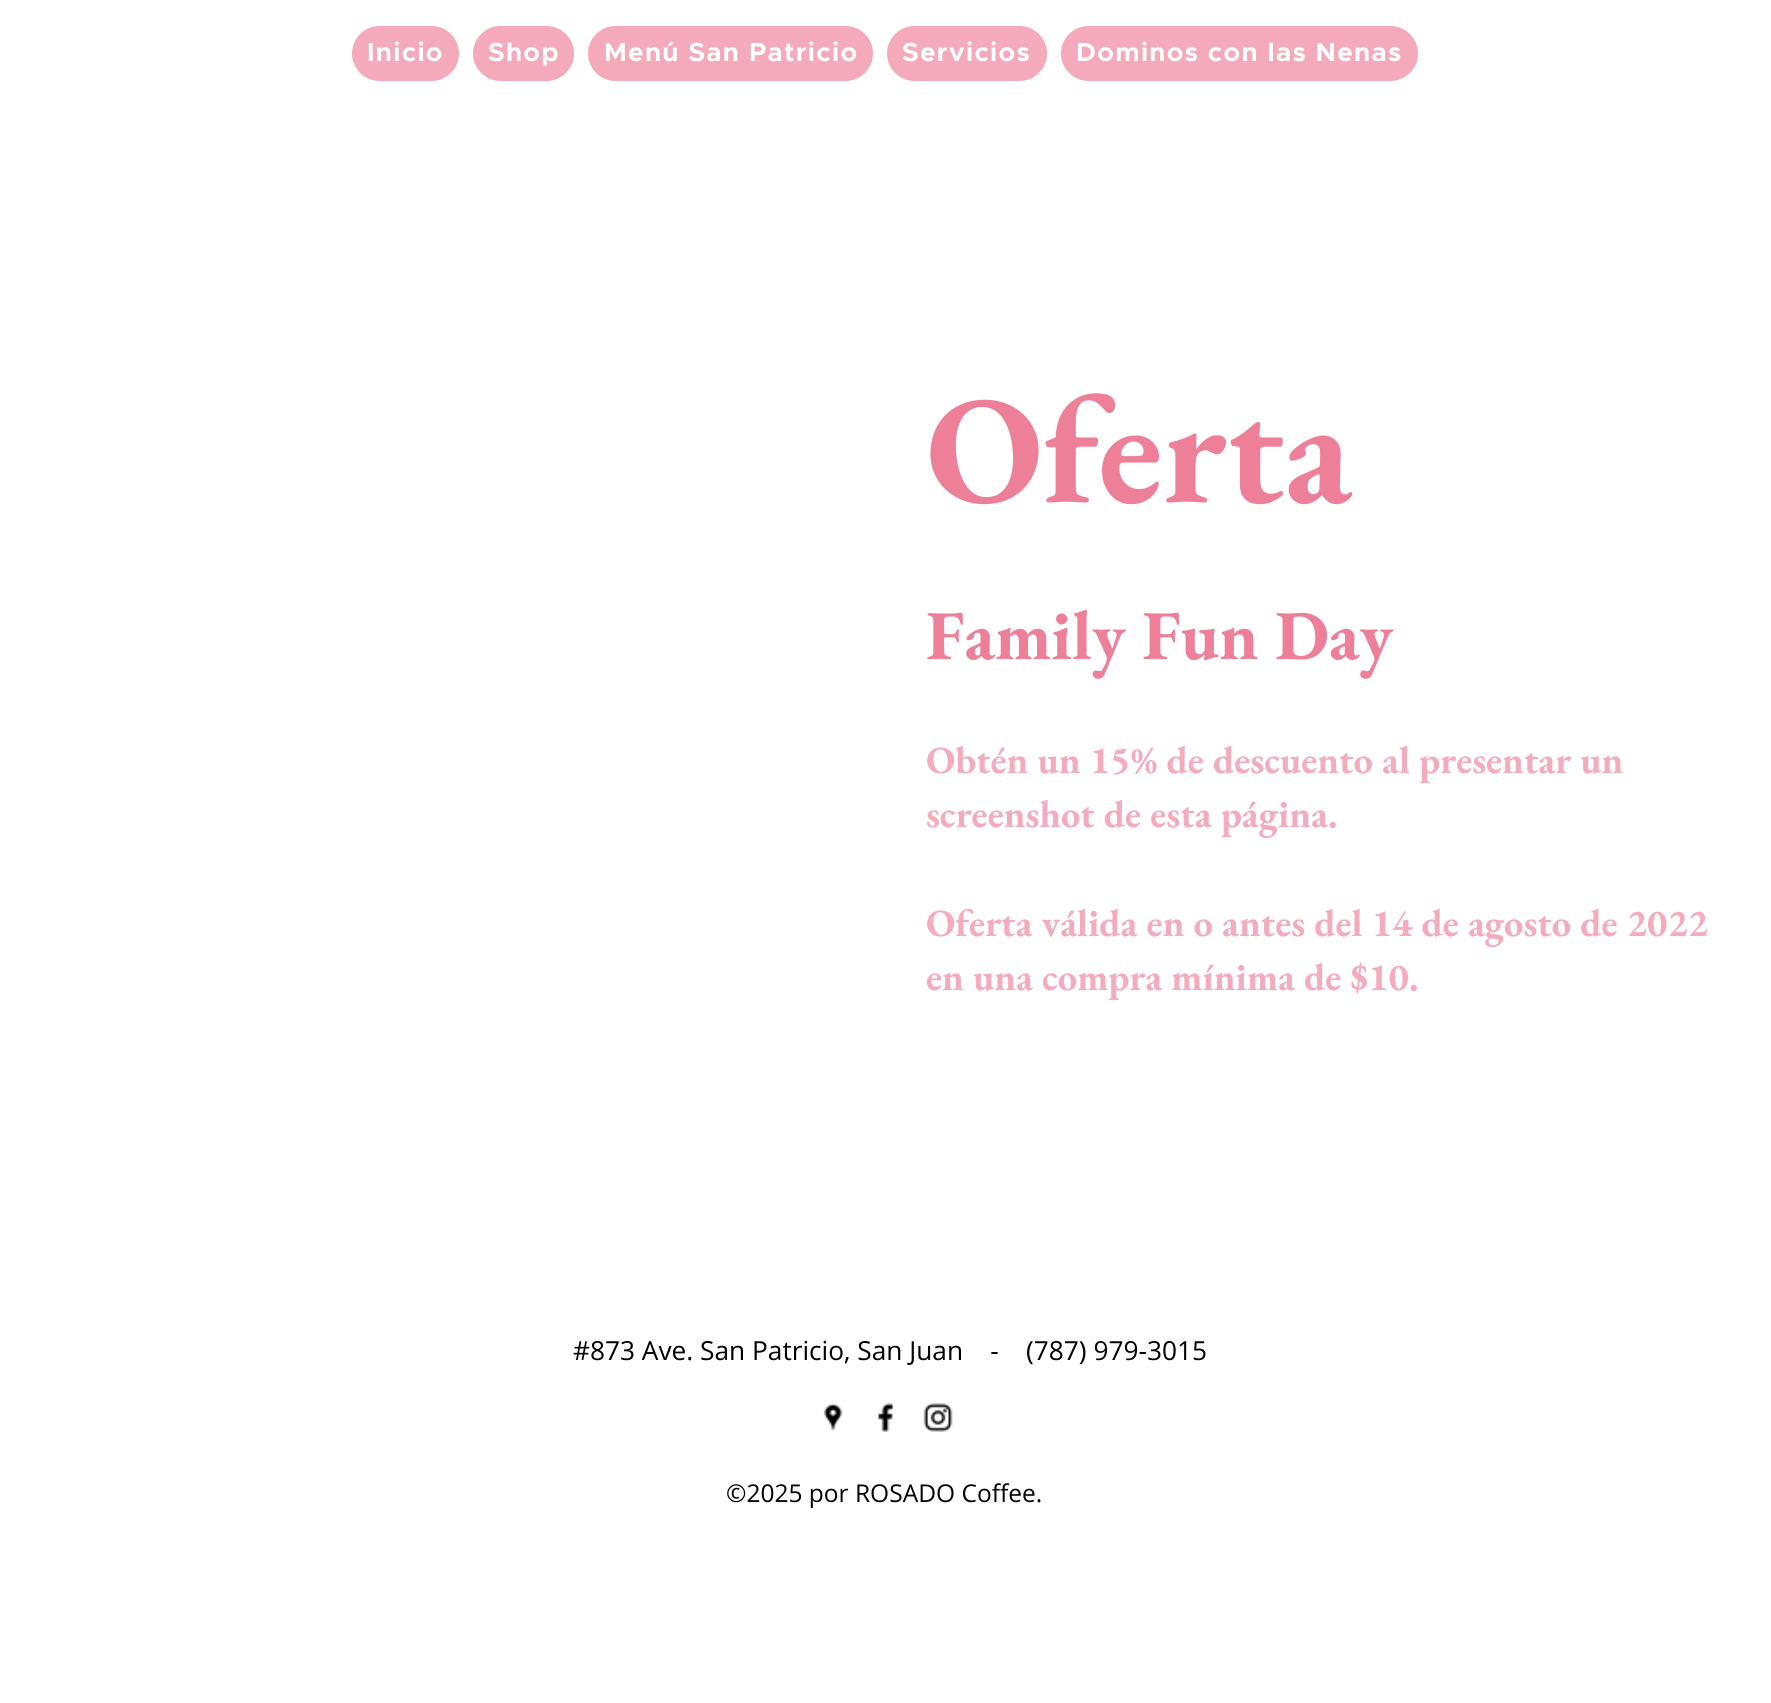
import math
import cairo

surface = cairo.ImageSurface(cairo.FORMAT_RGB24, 1771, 1703)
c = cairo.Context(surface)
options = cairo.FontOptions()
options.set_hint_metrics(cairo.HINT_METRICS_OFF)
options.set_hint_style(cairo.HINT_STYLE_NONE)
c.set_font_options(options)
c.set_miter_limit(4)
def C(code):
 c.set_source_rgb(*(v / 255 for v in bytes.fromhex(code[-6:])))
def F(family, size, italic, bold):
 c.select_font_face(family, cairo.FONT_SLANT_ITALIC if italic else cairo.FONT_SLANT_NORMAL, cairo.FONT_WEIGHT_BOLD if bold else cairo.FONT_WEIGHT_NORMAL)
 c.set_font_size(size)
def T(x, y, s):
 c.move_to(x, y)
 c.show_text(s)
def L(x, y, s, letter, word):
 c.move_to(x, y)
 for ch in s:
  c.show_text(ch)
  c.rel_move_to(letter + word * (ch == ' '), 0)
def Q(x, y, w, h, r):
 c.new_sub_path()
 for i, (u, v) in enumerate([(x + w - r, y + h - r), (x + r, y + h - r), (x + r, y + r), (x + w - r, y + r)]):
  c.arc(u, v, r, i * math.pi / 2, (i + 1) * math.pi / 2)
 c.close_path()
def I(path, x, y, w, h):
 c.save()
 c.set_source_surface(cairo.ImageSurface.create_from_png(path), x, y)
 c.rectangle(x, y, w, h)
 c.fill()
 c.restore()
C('ffffff')
c.paint()
C('f4aaba')
Q(352,26,107,55,27.5)
c.fill()
F('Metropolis',26.25,0,1)
C('ffffff')
L(367,61,'Inicio',1.3,0)
C('f4aaba')
Q(473,26,101,55,27.5)
c.fill()
C('ffffff')
L(488,61,'Shop',1.3,0)
C('f4aaba')
Q(588,26,285,55,27.5)
c.fill()
C('ffffff')
L(604,61,'Menú San Patricio',1.3,0)
C('f4aaba')
Q(887,26,160,55,27.5)
c.fill()
C('ffffff')
L(902,61,'Servicios',1.3,0)
C('f4aaba')
Q(1061,26,357,55,27.5)
c.fill()
C('ffffff')
L(1076,61,'Dominos con las Nenas',1.3,0)
F('EB Garamond',154,0,1)
C('ee7f98')
T(926,502,'Oferta')
F('EB Garamond',70,0,1)
T(926,659,'Family Fun Day')
F('EB Garamond',38.5,0,1)
C('f4acbc')
T(926,773,'Obtén un 15% de descuento al presentar un')
T(926,827,'screenshot de esta página.')
T(926,936,'Oferta válida en o antes del 14 de agosto de 2022')
T(926,990,'en una compra mínima de $10.')
F('Open Sans',26.25,0,0)
C('000000')
T(573,1360,'#873 Ave. San Patricio, San Juan    -    (787) 979-3015')
I('1.png',823,1403,20,28)
I('2.png',878,1403,16,29)
I('3.png',923,1403,30,29)
F('Open Sans',24.5,0,0)
T(726,1502,'©2025 por ROSADO Coffee.')
surface.write_to_png('o.png')
